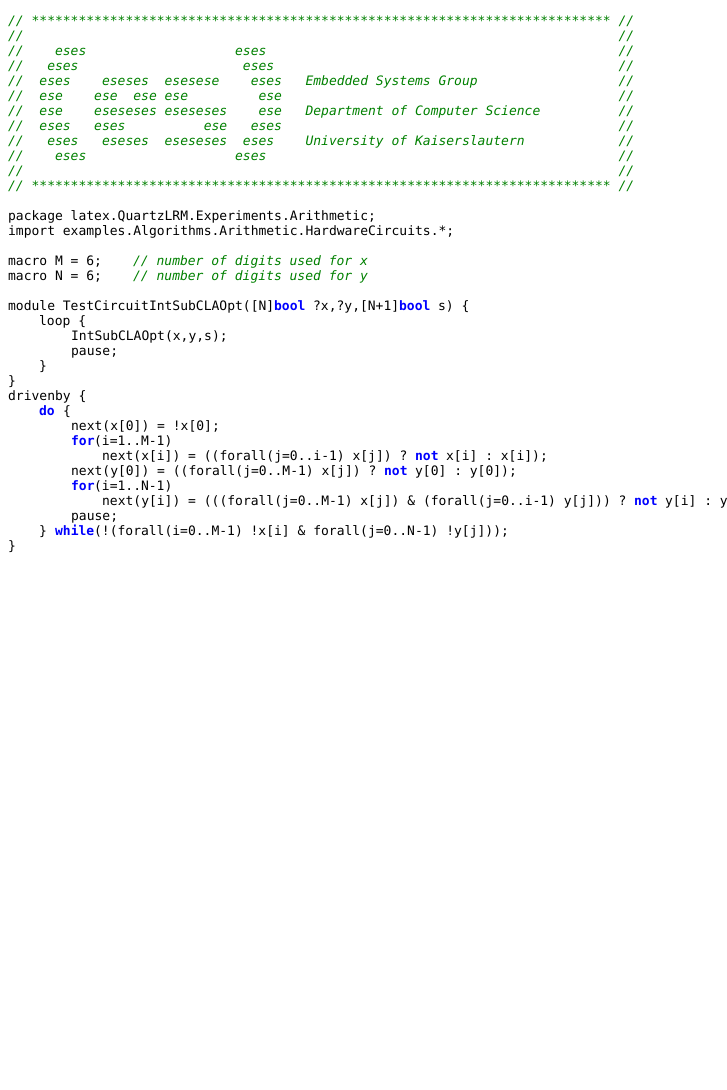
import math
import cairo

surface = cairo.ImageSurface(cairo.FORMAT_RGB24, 727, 1090)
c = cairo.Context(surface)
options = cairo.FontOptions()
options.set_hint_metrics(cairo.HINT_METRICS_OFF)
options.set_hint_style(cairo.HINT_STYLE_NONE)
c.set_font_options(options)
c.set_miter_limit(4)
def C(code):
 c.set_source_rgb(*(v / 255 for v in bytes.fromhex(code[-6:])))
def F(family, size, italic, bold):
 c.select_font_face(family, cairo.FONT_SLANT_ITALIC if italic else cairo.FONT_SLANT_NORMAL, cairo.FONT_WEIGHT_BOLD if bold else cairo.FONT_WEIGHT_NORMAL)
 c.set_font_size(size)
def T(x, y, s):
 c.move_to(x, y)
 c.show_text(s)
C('ffffff')
c.paint()
F('DejaVu Sans Mono',13,1,0)
C('008000')
T(8,25,'// ************************************************************************** //')
T(8,40,'//                                                                            //')
T(8,55,'//    eses                   eses                                             //')
T(8,70,'//   eses                     eses                                            //')
T(8,85,'//  eses    eseses  esesese    eses   Embedded Systems Group                  //')
T(8,100,'//  ese    ese  ese ese         ese                                           //')
T(8,115,'//  ese    eseseses eseseses    ese   Department of Computer Science          //')
T(8,130,'//  eses   eses          ese   eses                                           //')
T(8,145,'//   eses   eseses  eseseses  eses    University of Kaiserslautern            //')
T(8,160,'//    eses                   eses                                             //')
T(8,175,'//                                                                            //')
T(8,190,'// ************************************************************************** //')
F('DejaVu Sans Mono',13,0,0)
C('000000')
T(8,220,'package latex.QuartzLRM.Experiments.Arithmetic;')
T(8,235,'import examples.Algorithms.Arithmetic.HardwareCircuits.*;')
T(8,265,'macro M = 6;')
F('DejaVu Sans Mono',13,1,0)
C('008000')
T(133,265,'// number of digits used for x')
F('DejaVu Sans Mono',13,0,0)
C('000000')
T(8,280,'macro N = 6;')
F('DejaVu Sans Mono',13,1,0)
C('008000')
T(133,280,'// number of digits used for y')
F('DejaVu Sans Mono',13,0,0)
C('000000')
T(8,310,'module TestCircuitIntSubCLAOpt([N]')
F('DejaVu Sans Mono',13,0,1)
C('0000ff')
T(274,310,'bool')
F('DejaVu Sans Mono',13,0,0)
C('000000')
T(313,310,'?x,?y,[N+1]')
F('DejaVu Sans Mono',13,0,1)
C('0000ff')
T(399,310,'bool')
F('DejaVu Sans Mono',13,0,0)
C('000000')
T(438,310,'s) {')
T(39,325,'loop {')
T(71,340,'IntSubCLAOpt(x,y,s);')
T(71,355,'pause;')
T(39,370,'}')
T(8,385,'}')
T(8,400,'drivenby {')
F('DejaVu Sans Mono',13,0,1)
C('0000ff')
T(39,415,'do')
F('DejaVu Sans Mono',13,0,0)
C('000000')
T(63,415,'{')
T(71,430,'next(x[0]) = !x[0];')
F('DejaVu Sans Mono',13,0,1)
C('0000ff')
T(71,445,'for')
F('DejaVu Sans Mono',13,0,0)
C('000000')
T(94,445,'(i=1..M-1)')
T(102,460,'next(x[i]) = ((forall(j=0..i-1) x[j]) ?')
F('DejaVu Sans Mono',13,0,1)
C('0000ff')
T(415,460,'not')
F('DejaVu Sans Mono',13,0,0)
C('000000')
T(446,460,'x[i] : x[i]);')
T(71,475,'next(y[0]) = ((forall(j=0..M-1) x[j]) ?')
F('DejaVu Sans Mono',13,0,1)
C('0000ff')
T(384,475,'not')
F('DejaVu Sans Mono',13,0,0)
C('000000')
T(415,475,'y[0] : y[0]);')
F('DejaVu Sans Mono',13,0,1)
C('0000ff')
T(71,490,'for')
F('DejaVu Sans Mono',13,0,0)
C('000000')
T(94,490,'(i=1..N-1)')
T(102,505,'next(y[i]) = (((forall(j=0..M-1) x[j]) & (forall(j=0..i-1) y[j])) ?')
F('DejaVu Sans Mono',13,0,1)
C('0000ff')
T(634,505,'not')
F('DejaVu Sans Mono',13,0,0)
C('000000')
T(665,505,'y[i] : y')
T(71,520,'pause;')
T(39,535,'}')
F('DejaVu Sans Mono',13,0,1)
C('0000ff')
T(55,535,'while')
F('DejaVu Sans Mono',13,0,0)
C('000000')
T(94,535,'(!(forall(i=0..M-1) !x[i] & forall(j=0..N-1) !y[j]));')
T(8,550,'}')
surface.write_to_png('o.png')
